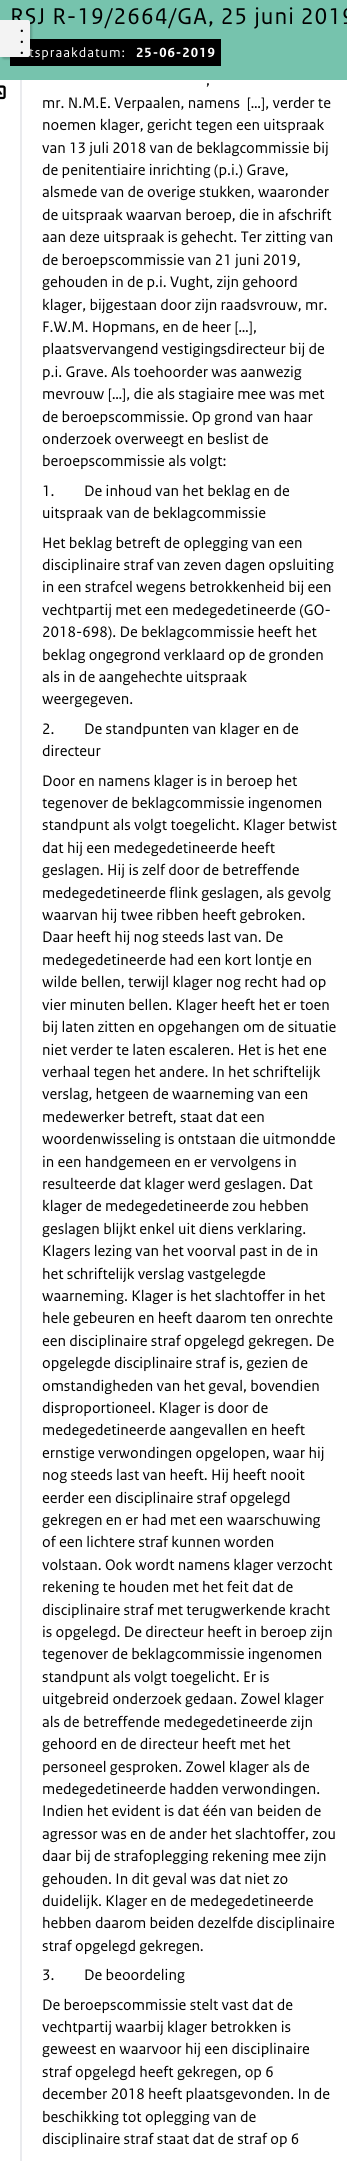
import math
import cairo

surface = cairo.ImageSurface(cairo.FORMAT_RGB24, 347, 2161)
c = cairo.Context(surface)
options = cairo.FontOptions()
options.set_hint_metrics(cairo.HINT_METRICS_OFF)
options.set_hint_style(cairo.HINT_STYLE_NONE)
c.set_font_options(options)
c.set_miter_limit(4)
def C(code):
 c.set_source_rgb(*(v / 255 for v in bytes.fromhex(code[-6:])))
def F(family, size, italic, bold):
 c.select_font_face(family, cairo.FONT_SLANT_ITALIC if italic else cairo.FONT_SLANT_NORMAL, cairo.FONT_WEIGHT_BOLD if bold else cairo.FONT_WEIGHT_NORMAL)
 c.set_font_size(size)
def T(x, y, s):
 c.move_to(x, y)
 c.show_text(s)
def L(x, y, s, letter, word):
 c.move_to(x, y)
 for ch in s:
  c.show_text(ch)
  c.rel_move_to(letter + word * (ch == ' '), 0)
def R(x, y, w, h):
 c.rectangle(x, y, w, h)
 c.fill()
def Q(x, y, w, h, r):
 c.new_sub_path()
 for i, (u, v) in enumerate([(x + w - r, y + h - r), (x + r, y + h - r), (x + r, y + r), (x + w - r, y + r)]):
  c.arc(u, v, r, i * math.pi / 2, (i + 1) * math.pi / 2)
 c.close_path()
def S(x, y, w, h, r, blur, alpha):
 c.push_group_with_content(cairo.CONTENT_ALPHA)
 c.set_operator(cairo.OPERATOR_SOURCE)
 for i in range(15, -16, -2):
  e = blur * i / 6
  if min(w, h) + 2 * e > 0:
   c.set_source_rgba(0, 0, 0, alpha * math.erfc((i - 1) / 8.5) / 2)
   Q(x - e, y - e, w + 2 * e, h + 2 * e, max(0, min(r + e + blur * .6, min(w, h) / 2 + e)))
   c.fill()
 c.mask(c.pop_group())
def I(path, x, y, w, h):
 c.save()
 c.set_source_surface(cairo.ImageSurface.create_from_png(path), x, y)
 c.rectangle(x, y, w, h)
 c.fill()
 c.restore()
C('ffffff')
c.paint()
C('76c3ad')
R(0,0,347,80)
F('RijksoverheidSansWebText',24,0,0)
C('000000')
L(10,24,'RSJ R-19/2664/GA, 25 juni 2019',1,0)
R(10,39,211,27)
F('RijksoverheidSansWebText',14,0,0)
C('ffffff')
L(29,57,'tspraakdatum:',1,0)
F('RijksoverheidSansWebText',14,0,1)
L(136,57,'25-06-2019',1,0)
C('000000')
S(2,22,30,37,2,1,.2)
C('f3f3f3')
c.new_path()
c.move_to(0,20)
c.line_to(28,20)
c.curve_to(29,20,30,21,30,22)
c.line_to(30,55)
c.curve_to(30,56,29,57,28,57)
c.line_to(0,57)
c.close_path()
c.fill()
C('000000')
T(20,32,'.')
T(20,43,'.')
T(20,54,'.')
I('1.png',0,85,6,15)
C('eaebee')
R(20,80,2,2081)
F('RijksoverheidSansWebText',16,0,0)
C('000000')
T(206,85,',')
T(42,108,'mr. N.M.E. Verpaalen, namens  […], verder te')
T(42,130,'noemen klager, gericht tegen een uitspraak')
T(42,153,'van 13 juli 2018 van de beklagcommissie bij')
T(42,175,'de penitentiaire inrichting (p.i.) Grave,')
T(42,197,'alsmede van de overige stukken, waaronder')
T(42,220,'de uitspraak waarvan beroep, die in afschrift')
T(42,242,'aan deze uitspraak is gehecht. Ter zitting van')
T(42,265,'de beroepscommissie van 21 juni 2019,')
T(42,287,'gehouden in de p.i. Vught, zijn gehoord')
T(42,310,'klager, bijgestaan door zijn raadsvrouw, mr.')
T(42,332,'F.W.M. Hopmans, en de heer […],')
T(42,354,'plaatsvervangend vestigingsdirecteur bij de')
T(42,377,'p.i. Grave. Als toehoorder was aanwezig')
T(42,399,'mevrouw […], die als stagiaire mee was met')
T(42,422,'de beroepscommissie. Op grond van haar')
T(42,444,'onderzoek overweegt en beslist de')
T(42,466,'beroepscommissie als volgt:')
T(42,496,'1.         De inhoud van het beklag en de')
T(42,518,'uitspraak van de beklagcommissie')
T(42,548,'Het beklag betreft de oplegging van een')
T(42,570,'disciplinaire straf van zeven dagen opsluiting')
T(42,592,'in een strafcel wegens betrokkenheid bij een')
T(42,615,'vechtpartij met een medegedetineerde (GO-')
T(42,637,'2018-698). De beklagcommissie heeft het')
T(42,660,'beklag ongegrond verklaard op de gronden')
T(42,682,'als in de aangehechte uitspraak')
T(42,704,'weergegeven.')
T(42,734,'2.         De standpunten van klager en de')
T(42,756,'directeur')
T(42,786,'Door en namens klager is in beroep het')
T(42,808,'tegenover de beklagcommissie ingenomen')
T(42,830,'standpunt als volgt toegelicht. Klager betwist')
T(42,853,'dat hij een medegedetineerde heeft')
T(42,875,'geslagen. Hij is zelf door de betreffende')
T(42,898,'medegedetineerde flink geslagen, als gevolg')
T(42,920,'waarvan hij twee ribben heeft gebroken.')
T(42,942,'Daar heeft hij nog steeds last van. De')
T(42,965,'medegedetineerde had een kort lontje en')
T(42,987,'wilde bellen, terwijl klager nog recht had op')
T(42,1010,'vier minuten bellen. Klager heeft het er toen')
T(42,1032,'bij laten zitten en opgehangen om de situatie')
T(42,1055,'niet verder te laten escaleren. Het is het ene')
T(42,1077,'verhaal tegen het andere. In het schriftelijk')
T(42,1099,'verslag, hetgeen de waarneming van een')
T(42,1122,'medewerker betreft, staat dat een')
T(42,1144,'woordenwisseling is ontstaan die uitmondde')
T(42,1167,'in een handgemeen en er vervolgens in')
T(42,1189,'resulteerde dat klager werd geslagen. Dat')
T(42,1211,'klager de medegedetineerde zou hebben')
T(42,1234,'geslagen blijkt enkel uit diens verklaring.')
T(42,1256,'Klagers lezing van het voorval past in de in')
T(42,1279,'het schriftelijk verslag vastgelegde')
T(42,1301,'waarneming. Klager is het slachtoffer in het')
T(42,1323,'hele gebeuren en heeft daarom ten onrechte')
T(42,1346,'een disciplinaire straf opgelegd gekregen. De')
T(42,1368,'opgelegde disciplinaire straf is, gezien de')
T(42,1391,'omstandigheden van het geval, bovendien')
T(42,1413,'disproportioneel. Klager is door de')
T(42,1435,'medegedetineerde aangevallen en heeft')
T(42,1458,'ernstige verwondingen opgelopen, waar hij')
T(42,1480,'nog steeds last van heeft. Hij heeft nooit')
T(42,1503,'eerder een disciplinaire straf opgelegd')
T(42,1525,'gekregen en er had met een waarschuwing')
T(42,1547,'of een lichtere straf kunnen worden')
T(42,1570,'volstaan. Ook wordt namens klager verzocht')
T(42,1592,'rekening te houden met het feit dat de')
T(42,1615,'disciplinaire straf met terugwerkende kracht')
T(42,1637,'is opgelegd. De directeur heeft in beroep zijn')
T(42,1659,'tegenover de beklagcommissie ingenomen')
T(42,1682,'standpunt als volgt toegelicht. Er is')
T(42,1704,'uitgebreid onderzoek gedaan. Zowel klager')
T(42,1727,'als de betreffende medegedetineerde zijn')
T(42,1749,'gehoord en de directeur heeft met het')
T(42,1772,'personeel gesproken. Zowel klager als de')
T(42,1794,'medegedetineerde hadden verwondingen.')
T(42,1816,'Indien het evident is dat één van beiden de')
T(42,1839,'agressor was en de ander het slachtoffer, zou')
T(42,1861,'daar bij de strafoplegging rekening mee zijn')
T(42,1884,'gehouden. In dit geval was dat niet zo')
T(42,1906,'duidelijk. Klager en de medegedetineerde')
T(42,1928,'hebben daarom beiden dezelfde disciplinaire')
T(42,1951,'straf opgelegd gekregen.')
T(42,1980,'3.         De beoordeling')
T(42,2010,'De beroepscommissie stelt vast dat de')
T(42,2032,'vechtpartij waarbij klager betrokken is')
T(42,2054,'geweest en waarvoor hij een disciplinaire')
T(42,2077,'straf opgelegd heeft gekregen, op 6')
T(42,2099,'december 2018 heeft plaatsgevonden. In de')
T(42,2122,'beschikking tot oplegging van de')
T(42,2144,'disciplinaire straf staat dat de straf op 6')
surface.write_to_png('o.png')
